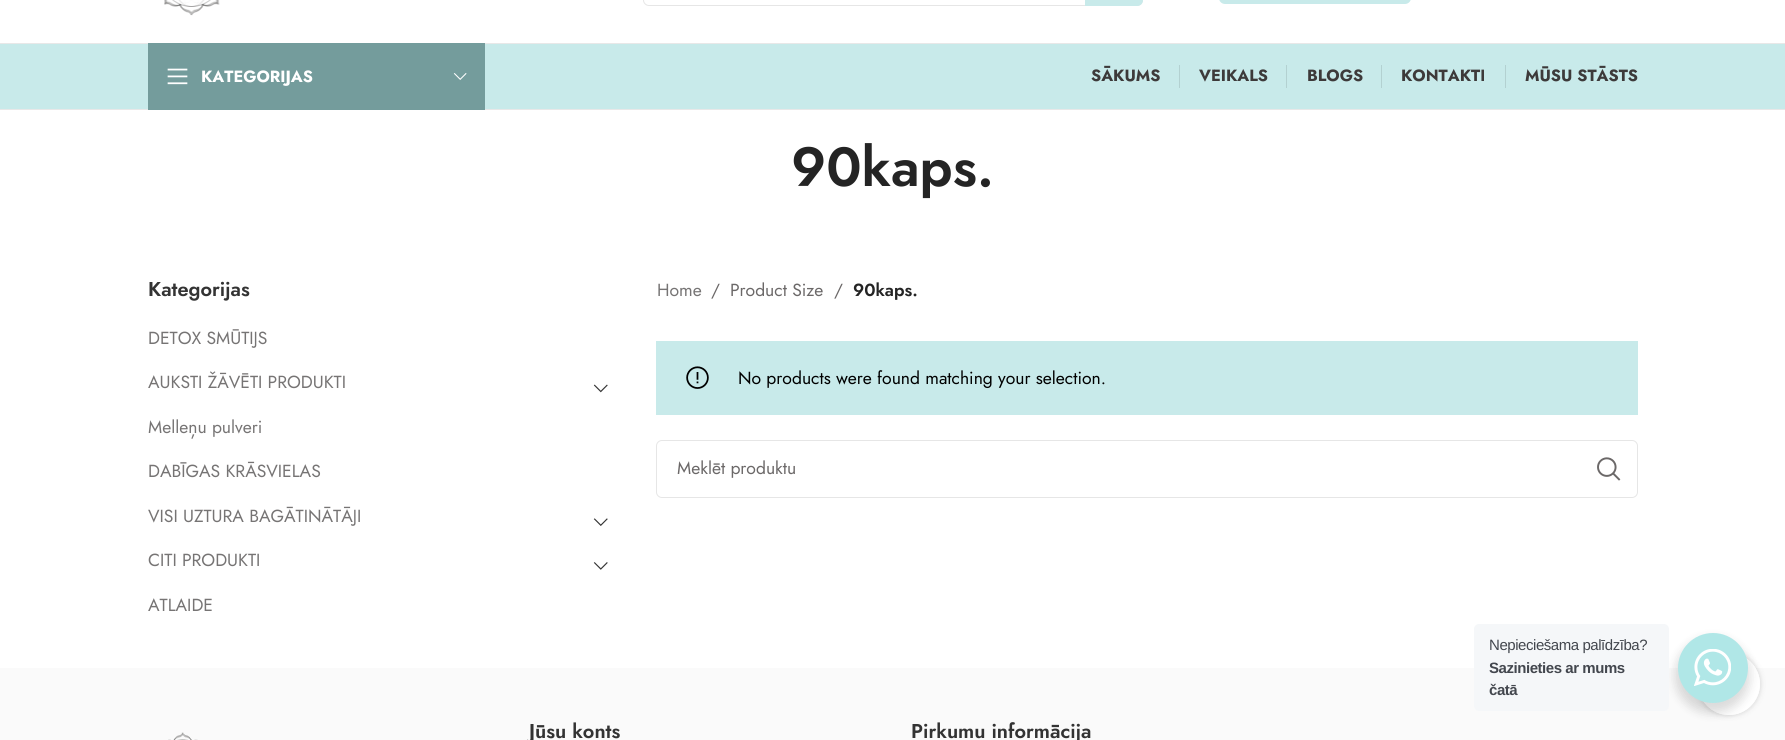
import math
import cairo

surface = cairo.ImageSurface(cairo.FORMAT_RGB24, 1785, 740)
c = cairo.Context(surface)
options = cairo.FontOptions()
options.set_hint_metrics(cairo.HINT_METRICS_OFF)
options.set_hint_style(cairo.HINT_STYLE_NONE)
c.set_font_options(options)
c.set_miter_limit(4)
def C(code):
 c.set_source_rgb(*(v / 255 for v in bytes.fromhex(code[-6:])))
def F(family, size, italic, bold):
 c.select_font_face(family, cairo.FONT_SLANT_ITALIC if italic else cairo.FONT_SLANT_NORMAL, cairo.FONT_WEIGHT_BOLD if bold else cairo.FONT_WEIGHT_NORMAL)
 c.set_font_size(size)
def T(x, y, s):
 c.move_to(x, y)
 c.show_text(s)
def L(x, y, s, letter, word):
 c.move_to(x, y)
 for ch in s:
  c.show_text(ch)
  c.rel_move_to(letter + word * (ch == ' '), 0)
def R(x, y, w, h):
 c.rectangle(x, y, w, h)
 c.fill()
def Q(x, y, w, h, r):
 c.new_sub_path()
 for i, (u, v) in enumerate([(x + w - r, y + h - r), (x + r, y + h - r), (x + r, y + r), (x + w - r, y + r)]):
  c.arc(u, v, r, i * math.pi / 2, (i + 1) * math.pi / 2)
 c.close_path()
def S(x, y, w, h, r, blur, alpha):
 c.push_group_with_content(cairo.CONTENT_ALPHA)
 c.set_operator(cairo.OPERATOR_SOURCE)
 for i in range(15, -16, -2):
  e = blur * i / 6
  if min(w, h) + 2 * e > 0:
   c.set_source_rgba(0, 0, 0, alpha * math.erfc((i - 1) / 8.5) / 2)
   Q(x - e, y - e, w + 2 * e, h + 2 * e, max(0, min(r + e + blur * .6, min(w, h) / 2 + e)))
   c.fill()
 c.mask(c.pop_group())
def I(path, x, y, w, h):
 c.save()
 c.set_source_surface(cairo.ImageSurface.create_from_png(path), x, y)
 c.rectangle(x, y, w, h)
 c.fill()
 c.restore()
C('ffffff')
c.paint()
C('e8e8e8')
R(0,43,1785,1)
Q(643.5,-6.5,499,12,5.5)
C('e6e6e6')
c.set_line_width(1)
c.stroke()
C('c8eaea')
c.new_path()
c.move_to(1085,-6)
c.line_to(1137,-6)
c.curve_to(1140.5,-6,1143,-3.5,1143,0)
c.curve_to(1143,3.5,1140.5,6,1137,6)
c.line_to(1085,6)
c.close_path()
c.fill()
Q(1219,-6,192,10,6)
c.fill()
I('1.png',164,0,56,16)
R(0,44,1785,65)
C('e8e8e8')
R(0,109,1785,1)
C('749c9c')
R(148,43,337,67)
I('2.png',167,68,21,17)
F('Jost',16.25,0,1)
C('ffffff')
T(201,82,'KATEGORIJAS')
I('3.png',453,73,14,7)
C('3d3a3a')
T(1091,81,'SĀKUMS')
C('b3d1d1')
R(1179,65,1,23)
C('3d3a3a')
T(1199,81,'VEIKALS')
C('b3d1d1')
R(1286,65,1,23)
C('3d3a3a')
T(1307,81,'BLOGS')
C('b3d1d1')
R(1381,65,1,23)
C('3d3a3a')
T(1401,81,'KONTAKTI')
C('b3d1d1')
R(1505,65,1,23)
C('3d3a3a')
T(1525,81,'MŪSU STĀSTS')
F('Jost SemiBold',55,0,0)
C('242424')
T(791,186,'90kaps.')
F('Jost SemiBold',20,0,0)
C('333333')
T(148,296,'Kategorijas')
F('Jost',17.5,0,0)
C('767474')
T(148,344,'DETOX SMŪTIJS')
T(148,388,'AUKSTI ŽĀVĒTI PRODUKTI')
I('4.png',593,384,15,9)
T(148,433,'Melleņu pulveri')
T(148,477,'DABĪGAS KRĀSVIELAS')
T(148,522,'VISI UZTURA BAGĀTINĀTĀJI')
I('5.png',593,518,15,8)
T(148,566,'CITI PRODUKTI')
I('6.png',593,562,15,8)
T(148,611,'ATLAIDE')
T(657,296,'Home')
C('6b6868')
T(711,296,'/')
T(730,296,'Product Size')
T(834,296,'/')
F('Jost SemiBold',17.5,0,0)
C('242424')
T(853,296,'90kaps.')
C('c8eaea')
R(656,341,982,74)
I('7.png',686,366,23,23)
F('Jost',17.5,0,0)
C('000000')
T(738,384,'No products were found matching your selection.')
Q(656.5,440.5,981,57,5.5)
C('e6e6e6')
c.stroke()
C('6b6868')
T(677,474,'Meklēt produktu')
I('8.png',1597,457,24,24)
C('fafafa')
R(0,668,1785,72)
I('9.png',168,732,30,8)
F('Jost SemiBold',20,0,0)
C('333333')
T(529,738,'Jūsu konts')
T(911,738,'Pirkumu informācija')
c.save()
c.set_fill_rule(cairo.FILL_RULE_EVEN_ODD)
c.new_path()
c.move_to(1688,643)
c.line_to(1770,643)
c.line_to(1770,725)
c.line_to(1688,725)
c.close_path()
c.move_to(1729,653)
c.curve_to(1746,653,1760,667,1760,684)
c.curve_to(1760,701,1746,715,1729,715)
c.curve_to(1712,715,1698,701,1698,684)
c.curve_to(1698,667,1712,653,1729,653)
c.close_path()
c.clip()
C('000000')
S(1698,653,62,62,31,3,.17)
c.restore()
c.set_source_rgba(1,1,1,0.9)
c.arc(1729,684,31,0,2 * math.pi)
c.fill()
C('000000')
S(1675,638,75,75,37.5,5,.14)
C('f5f7f9')
Q(1474,624,195,87,5)
c.fill()
F('Liberation Sans',15,0,0)
C('43474e')
L(1489,650,'Nepieciešama palīdzība?',-.45,0)
F('Liberation Sans',15,0,1)
L(1489,673,'Sazinieties ar mums',-.45,0)
L(1489,695,'čatā',-.45,0)
C('b0e7e7')
c.new_path()
c.arc(1713,668,35,0,2 * math.pi)
c.fill()
I('10.png',1694,649,37,37)
surface.write_to_png('o.png')
